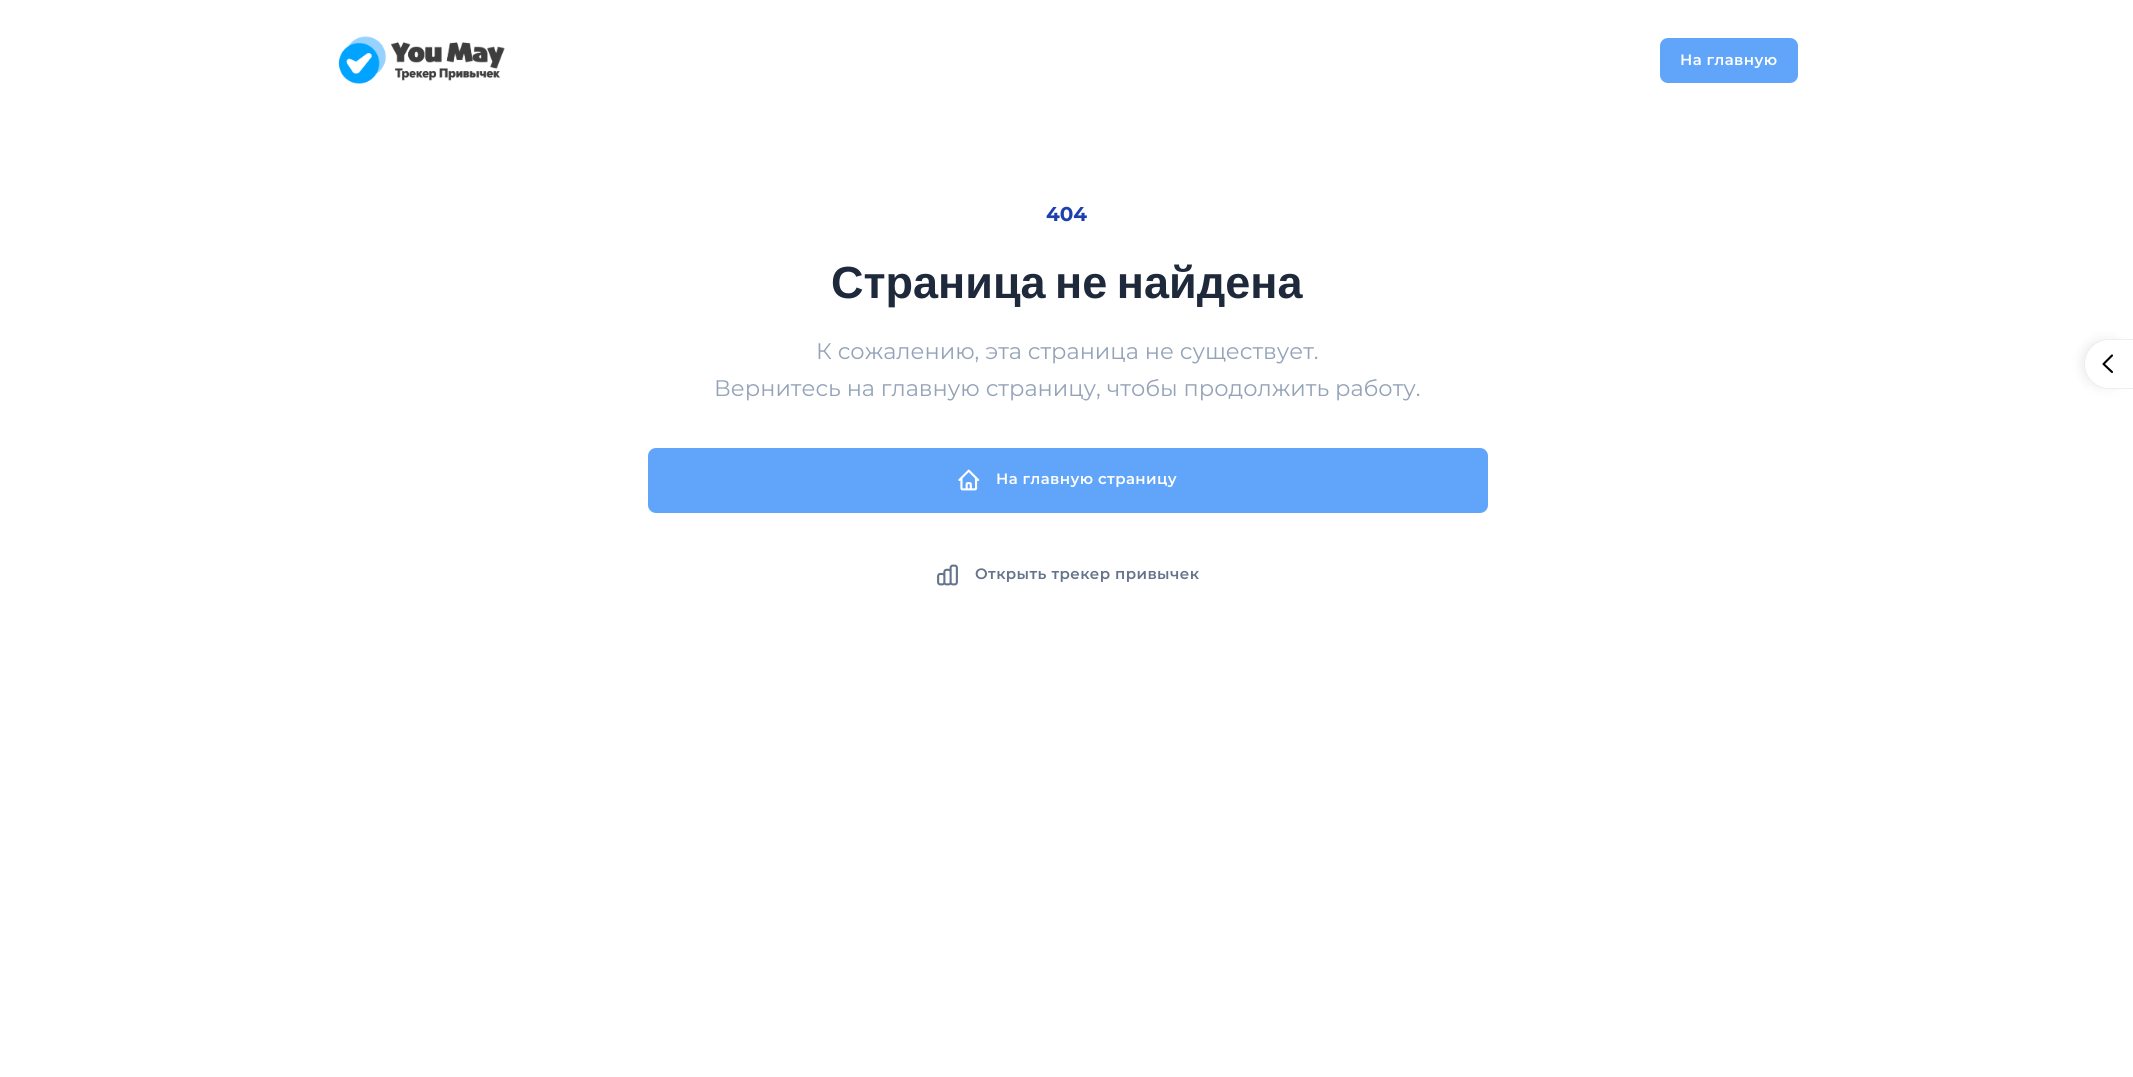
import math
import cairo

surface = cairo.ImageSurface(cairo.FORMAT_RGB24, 2133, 1077)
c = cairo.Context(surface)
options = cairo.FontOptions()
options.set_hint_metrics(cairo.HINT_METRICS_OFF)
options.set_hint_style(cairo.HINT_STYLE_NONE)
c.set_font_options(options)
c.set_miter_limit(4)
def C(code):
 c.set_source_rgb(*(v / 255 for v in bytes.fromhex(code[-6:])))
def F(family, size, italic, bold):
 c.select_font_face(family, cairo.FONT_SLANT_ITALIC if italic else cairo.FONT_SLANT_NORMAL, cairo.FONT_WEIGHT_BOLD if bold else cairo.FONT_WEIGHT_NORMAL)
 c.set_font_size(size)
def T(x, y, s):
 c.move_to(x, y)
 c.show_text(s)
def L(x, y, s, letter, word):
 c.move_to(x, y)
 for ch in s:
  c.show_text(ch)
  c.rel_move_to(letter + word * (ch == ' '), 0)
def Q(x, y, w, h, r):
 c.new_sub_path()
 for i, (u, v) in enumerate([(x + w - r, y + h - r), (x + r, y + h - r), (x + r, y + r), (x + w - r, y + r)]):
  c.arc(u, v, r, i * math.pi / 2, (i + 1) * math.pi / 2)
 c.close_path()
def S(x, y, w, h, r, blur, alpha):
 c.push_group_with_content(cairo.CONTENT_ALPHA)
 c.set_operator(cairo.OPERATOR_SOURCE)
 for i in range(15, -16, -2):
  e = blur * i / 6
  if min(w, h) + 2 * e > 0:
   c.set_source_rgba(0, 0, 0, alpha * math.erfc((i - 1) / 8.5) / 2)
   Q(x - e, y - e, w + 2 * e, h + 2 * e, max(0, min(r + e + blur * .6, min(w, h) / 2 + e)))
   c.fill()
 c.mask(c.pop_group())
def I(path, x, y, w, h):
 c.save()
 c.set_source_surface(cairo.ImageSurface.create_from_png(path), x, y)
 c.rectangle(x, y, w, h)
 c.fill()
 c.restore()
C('ffffff')
c.paint()
I('1.png',338,36,167,48)
C('60a5fa')
Q(1660,38,138,45,8)
c.fill()
F('Montserrat SemiBold',15,0,0)
C('ffffff')
L(1680,65,'На главную',.4,0)
F('Montserrat',20,0,1)
C('1e40af')
T(1046,221,'404')
F('Liberation Sans',45,0,1)
C('1e293b')
L(831,298,'Страница не найдена',0,-3)
F('Montserrat',22.5,0,0)
C('94a3b8')
T(816,359,'К сожалению, эта страница не существует.')
T(714,396,'Вернитесь на главную страницу, чтобы продолжить работу.')
C('60a5fa')
Q(648,448,840,65,8)
c.fill()
I('2.png',958,469,22,22)
F('Montserrat SemiBold',15,0,0)
C('ffffff')
L(996,484,'На главную страницу',.4,0)
I('3.png',937,564,21,22)
C('64748b')
L(975,579,'Открыть трекер привычек',.4,0)
C('000000')
S(2083,341,45,45,22.5,6,.1)
C('ffffff')
c.new_path()
c.move_to(2109,339.5)
c.line_to(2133.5,339.5)
c.line_to(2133.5,388.5)
c.line_to(2109,388.5)
c.curve_to(2095.5,388.5,2084.5,377.5,2084.5,364)
c.curve_to(2084.5,350.5,2095.5,339.5,2109,339.5)
c.close_path()
c.fill_preserve()
C('eeeeee')
c.set_line_width(1)
c.stroke()
c.new_path()
c.move_to(2112,355.5)
c.line_to(2103.5,364)
c.line_to(2112,372)
C('000000')
c.set_line_width(2.1)
c.set_line_cap(cairo.LINE_CAP_ROUND)
c.set_line_join(cairo.LINE_JOIN_ROUND)
c.stroke()
surface.write_to_png('o.png')
